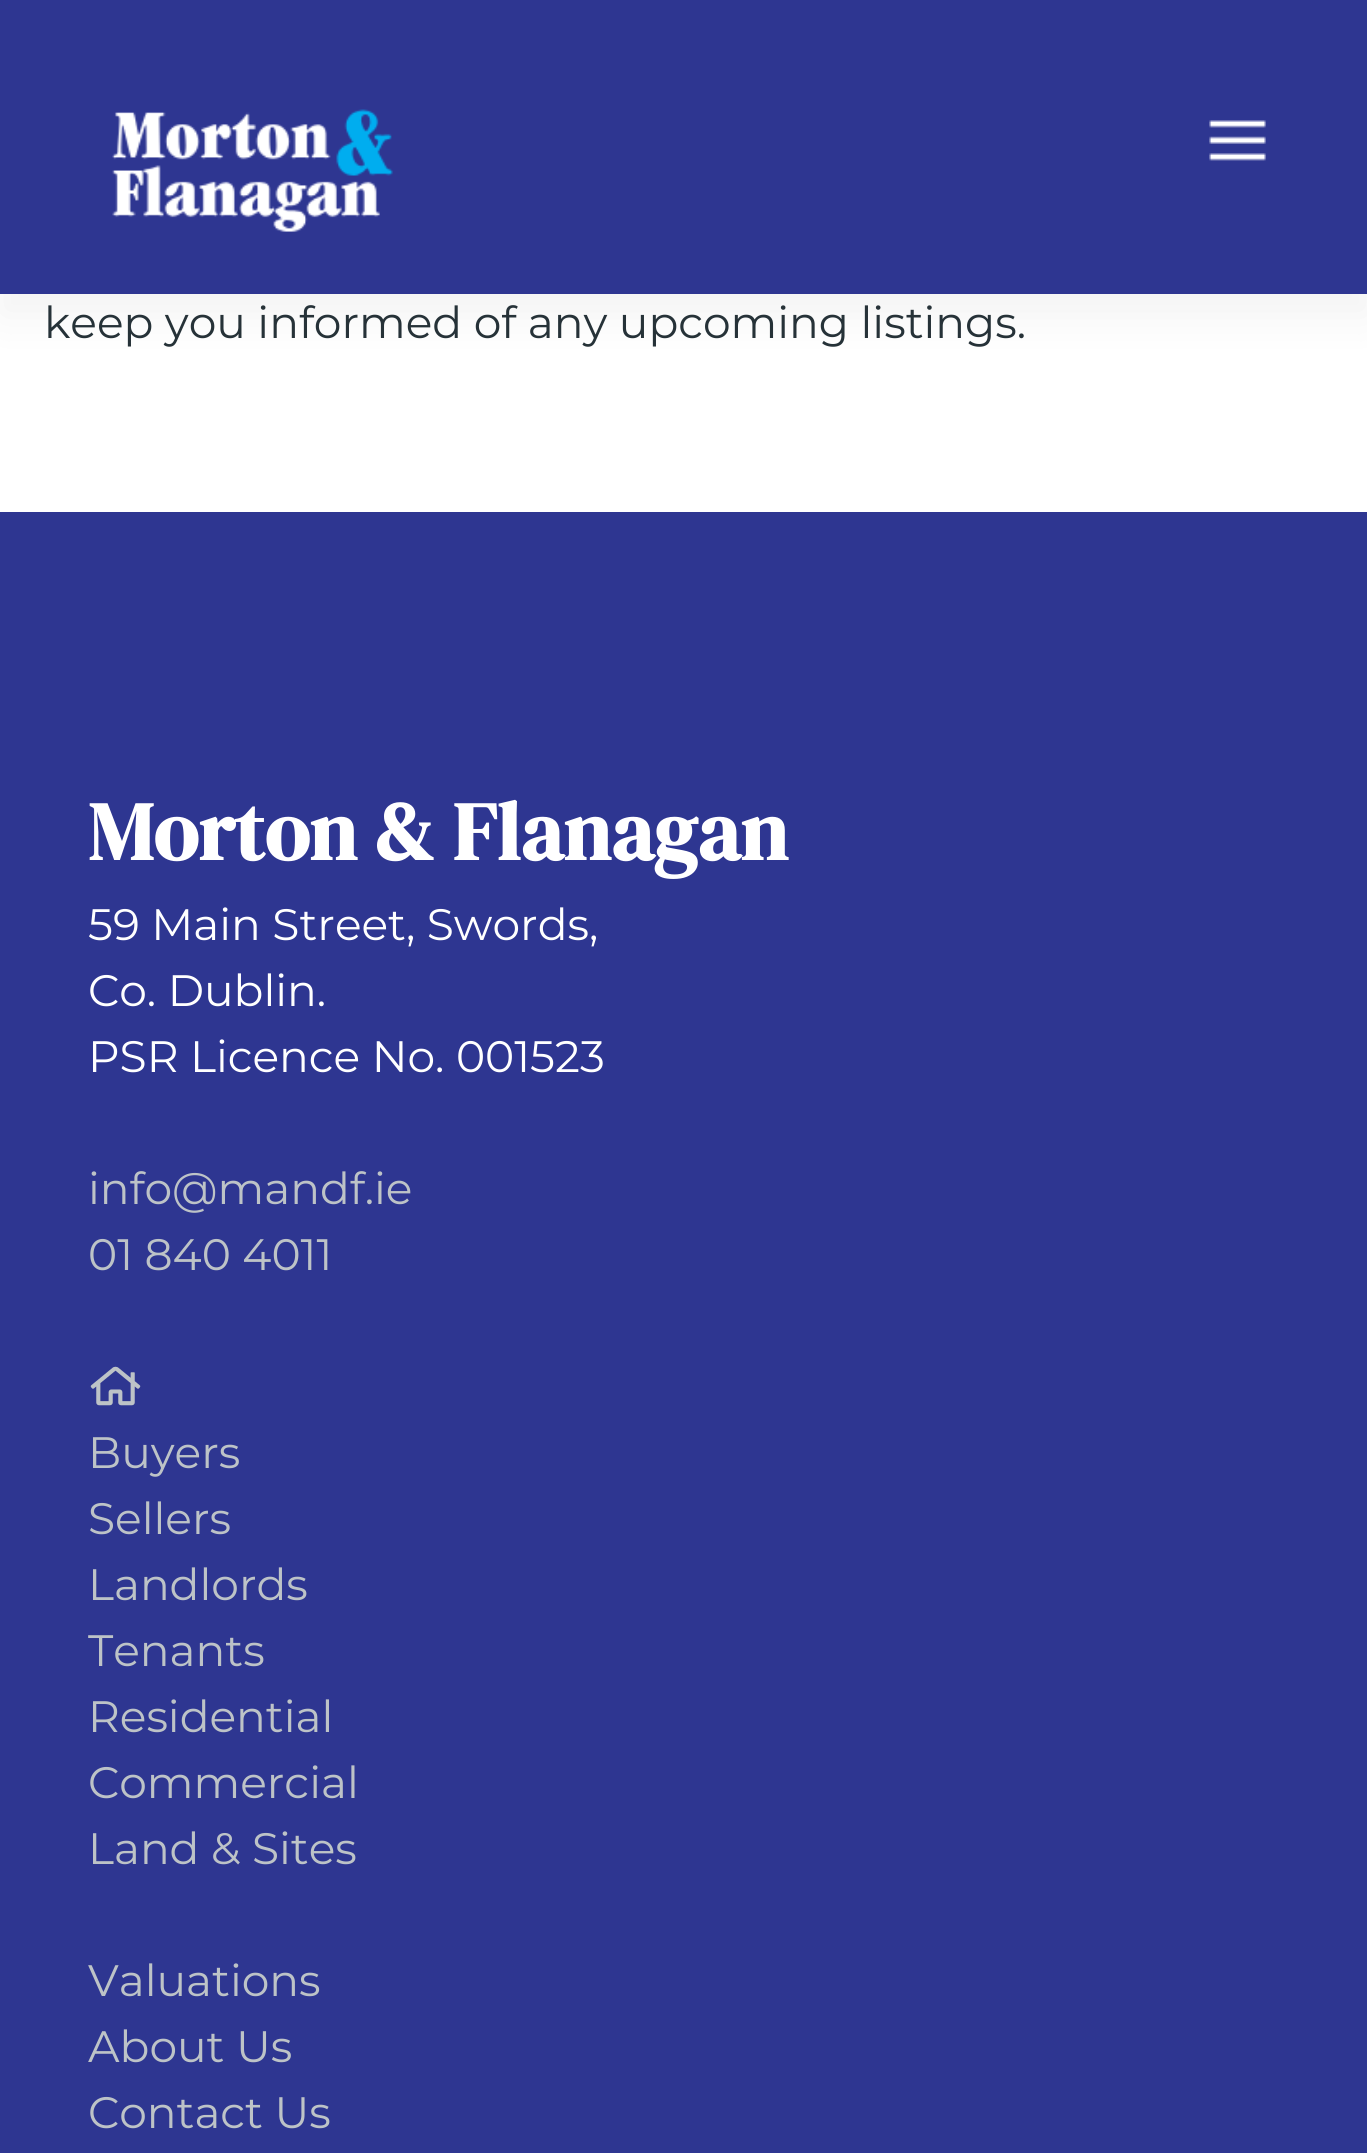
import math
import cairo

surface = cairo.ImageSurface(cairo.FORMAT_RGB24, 1367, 2153)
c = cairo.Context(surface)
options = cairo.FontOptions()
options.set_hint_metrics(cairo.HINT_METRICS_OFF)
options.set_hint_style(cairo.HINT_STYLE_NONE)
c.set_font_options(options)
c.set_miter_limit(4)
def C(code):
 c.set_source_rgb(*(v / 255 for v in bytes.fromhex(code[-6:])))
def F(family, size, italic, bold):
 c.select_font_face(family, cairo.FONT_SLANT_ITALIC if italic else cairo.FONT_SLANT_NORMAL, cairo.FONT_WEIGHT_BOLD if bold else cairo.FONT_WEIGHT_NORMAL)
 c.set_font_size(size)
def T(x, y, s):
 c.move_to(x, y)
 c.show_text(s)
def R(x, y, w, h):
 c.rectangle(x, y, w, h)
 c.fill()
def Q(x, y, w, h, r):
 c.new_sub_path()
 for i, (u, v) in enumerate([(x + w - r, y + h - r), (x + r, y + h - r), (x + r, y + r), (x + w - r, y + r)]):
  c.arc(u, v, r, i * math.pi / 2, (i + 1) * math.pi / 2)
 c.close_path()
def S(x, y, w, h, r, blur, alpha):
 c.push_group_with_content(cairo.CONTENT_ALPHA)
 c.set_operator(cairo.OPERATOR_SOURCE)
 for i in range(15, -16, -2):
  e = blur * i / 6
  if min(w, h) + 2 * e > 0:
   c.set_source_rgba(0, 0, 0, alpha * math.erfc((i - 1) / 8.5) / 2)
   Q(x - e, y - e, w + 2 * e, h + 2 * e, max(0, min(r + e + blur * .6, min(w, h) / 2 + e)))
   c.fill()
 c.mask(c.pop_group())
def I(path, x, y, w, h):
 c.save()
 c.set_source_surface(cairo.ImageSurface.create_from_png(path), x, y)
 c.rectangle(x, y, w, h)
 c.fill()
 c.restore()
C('ffffff')
c.paint()
C('000000')
S(0,22,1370,294,0,22,.05)
C('2e3691')
R(0,0,1367,294)
I('1.png',112,109,281,123)
I('2.png',1209,120,57,41)
F('Montserrat',44,0,0)
C('263238')
T(44,338,'keep you informed of any upcoming listings.')
C('2e3691')
R(0,512,1367,1641)
F('DM Serif Display',82.5,0,1)
C('ffffff')
T(88,860,'Morton & Flanagan')
F('Montserrat',44,0,0)
T(88,940,'59 Main Street, Swords,')
T(88,1006,'Co. Dublin.')
T(88,1072,'PSR Licence No. 001523')
C('bdc3c7')
T(88,1204,'info@mandf.ie')
T(88,1270,'01 840 4011')
I('3.png',90,1366,51,40)
T(88,1468,'Buyers')
T(88,1534,'Sellers')
T(88,1600,'Landlords')
T(88,1666,'Tenants')
T(88,1732,'Residential')
T(88,1798,'Commercial')
T(88,1864,'Land & Sites')
T(88,1996,'Valuations')
T(88,2062,'About Us')
T(88,2128,'Contact Us')
surface.write_to_png('o.png')
